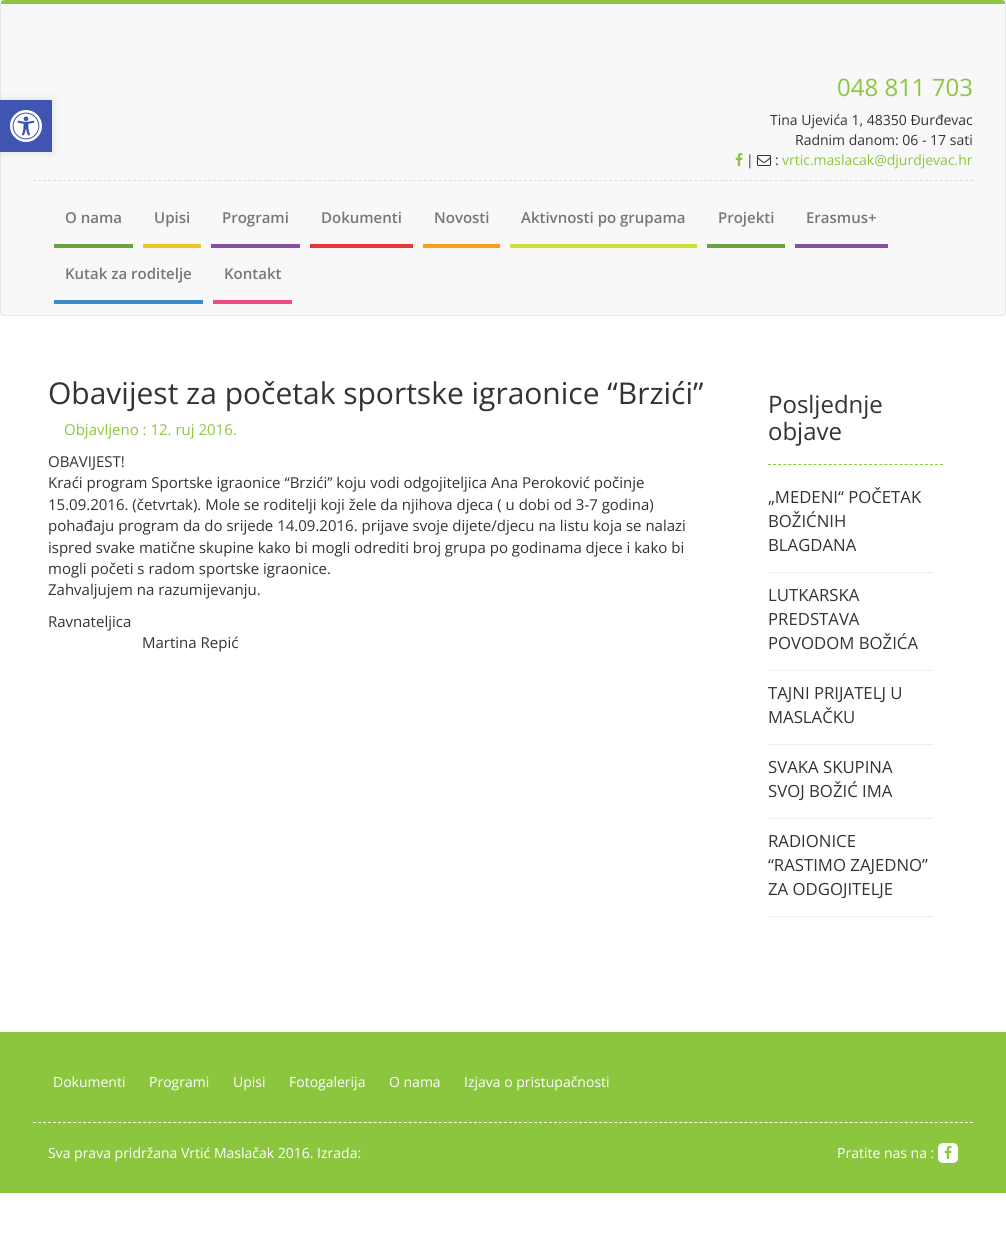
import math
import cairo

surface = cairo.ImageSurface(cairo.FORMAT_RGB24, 1006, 1252)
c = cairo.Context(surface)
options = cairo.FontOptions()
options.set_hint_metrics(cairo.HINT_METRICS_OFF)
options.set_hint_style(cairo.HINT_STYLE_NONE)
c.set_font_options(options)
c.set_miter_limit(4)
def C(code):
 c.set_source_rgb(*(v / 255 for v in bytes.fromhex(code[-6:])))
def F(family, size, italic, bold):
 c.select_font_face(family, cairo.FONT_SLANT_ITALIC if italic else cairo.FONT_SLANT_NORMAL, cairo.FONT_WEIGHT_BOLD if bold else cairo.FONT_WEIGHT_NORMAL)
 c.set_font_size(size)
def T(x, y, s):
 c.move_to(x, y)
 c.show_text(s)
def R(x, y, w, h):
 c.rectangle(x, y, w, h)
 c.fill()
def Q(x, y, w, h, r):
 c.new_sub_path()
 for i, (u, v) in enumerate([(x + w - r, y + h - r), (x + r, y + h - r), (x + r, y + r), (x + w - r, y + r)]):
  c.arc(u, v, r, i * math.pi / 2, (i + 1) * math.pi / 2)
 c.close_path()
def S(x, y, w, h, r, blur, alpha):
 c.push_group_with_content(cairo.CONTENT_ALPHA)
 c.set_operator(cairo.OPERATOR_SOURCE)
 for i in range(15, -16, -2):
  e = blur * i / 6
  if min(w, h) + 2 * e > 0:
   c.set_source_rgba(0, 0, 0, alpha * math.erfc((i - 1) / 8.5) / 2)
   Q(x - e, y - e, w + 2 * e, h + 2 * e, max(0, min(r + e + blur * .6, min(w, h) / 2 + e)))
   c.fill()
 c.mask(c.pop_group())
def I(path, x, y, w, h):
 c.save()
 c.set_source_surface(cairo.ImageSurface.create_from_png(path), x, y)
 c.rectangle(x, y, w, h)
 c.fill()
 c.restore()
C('ffffff')
c.paint()
C('f8f8f8')
c.new_path()
c.move_to(4,4)
c.line_to(1005,4)
c.line_to(1005,312)
c.curve_to(1005,314,1004,315,1002,315)
c.line_to(4,315)
c.curve_to(2,315,1,314,1,312)
c.line_to(1,4)
c.close_path()
c.fill()
C('8cc63f')
c.new_path()
c.move_to(4,0)
c.curve_to(3,0,1,1,1,2)
c.line_to(1,4)
c.line_to(1005,4)
c.line_to(1005,2)
c.curve_to(1005,1,1003,0,1002,0)
c.close_path()
c.fill()
C('e7e7e7')
c.new_path()
c.move_to(1006,312)
c.line_to(1006,4)
c.line_to(1005,2)
c.line_to(1005,4)
c.line_to(1005,312)
c.line_to(1004,314)
c.line_to(1005,315)
c.close_path()
c.fill()
c.new_path()
c.move_to(4,316)
c.line_to(1002,316)
c.line_to(1005,315)
c.line_to(1004,314)
c.line_to(1002,315)
c.line_to(4,315)
c.line_to(2,314)
c.line_to(1,315)
c.close_path()
c.fill()
c.new_path()
c.move_to(0,4)
c.line_to(0,312)
c.line_to(1,315)
c.line_to(2,314)
c.line_to(1,312)
c.line_to(1,4)
c.line_to(1,2)
c.close_path()
c.fill()
C('000000')
S(0,100,52,52,0,5,.1)
C('4054b2')
R(0,100,52,52)
I('1.png',10,110,32,32)
F('Open Sans',24,0,0)
C('8cc63f')
T(837,96,'048 811 703')
F('Open Sans',14,0,0)
C('333333')
T(770,125,'Tina Ujevića 1, 48350 Đurđevac')
T(795,145,'Radnim danom: 06 - 17 sati')
I('2.png',735,153,8,13)
T(746,165,'|')
I('3.png',757,155,14,11)
T(775,165,':')
C('8cc63f')
T(782,165,'vrtic.maslacak@djurdjevac.hr')
c.new_path()
c.move_to(33,180.5)
c.line_to(973,180.5)
C('dedede')
c.set_line_width(1)
c.set_dash([3,2.01])
c.stroke()
C('6aa143')
R(54,244,79,4)
F('Open Sans SemiBold',15,0,0)
C('777777')
T(65,223,'O nama')
C('f0c626')
R(143,244,58,4)
C('777777')
T(154,223,'Upisi')
C('8352a1')
R(211,244,89,4)
C('777777')
T(222,223,'Programi')
C('e63935')
R(310,244,103,4)
C('777777')
T(321,223,'Dokumenti')
C('f8a01a')
R(423,244,77,4)
C('777777')
T(434,223,'Novosti')
C('cedd38')
R(510,244,187,4)
C('777777')
T(521,223,'Aktivnosti po grupama')
C('6aa143')
R(707,244,78,4)
C('777777')
T(718,223,'Projekti')
C('8352a1')
R(795,244,93,4)
C('777777')
T(806,223,'Erasmus+')
C('3b8ccb')
R(54,300,149,4)
C('777777')
T(65,279,'Kutak za roditelje')
C('ef4b84')
R(213,300,79,4)
C('777777')
T(224,279,'Kontakt')
F('Open Sans',30,0,0)
C('333333')
T(48,404,'Obavijest za početak sportske igraonice “Brzići”')
F('Open Sans',15,0,0)
C('8cc63f')
T(64,435,'Objavljeno : 12. ruj 2016.')
C('333333')
T(48,467,'OBAVIJEST!')
T(48,488,'Kraći program Sportske igraonice “Brzići” koju vodi odgojiteljica Ana Peroković počinje')
T(48,510,'15.09.2016. (četvrtak). Mole se roditelji koji žele da njihova djeca ( u dobi od 3-7 godina)')
T(48,531,'pohađaju program da do srijede 14.09.2016. prijave svoje dijete/djecu na listu koja se nalazi')
T(48,553,'ispred svake matične skupine kako bi mogli odrediti broj grupa po godinama djece i kako bi')
T(48,574,'mogli početi s radom sportske igraonice.')
T(48,595,'Zahvaljujem na razumijevanju.')
T(48,627,'Ravnateljica')
T(142,648,'Martina Repić')
c.new_path()
c.move_to(768,464.5)
c.line_to(943,464.5)
C('8cc63f')
c.set_dash([3,2.06])
c.stroke()
F('Open Sans',24,0,0)
C('333333')
T(768,413,'Posljednje')
T(768,440,'objave')
c.new_path()
c.move_to(768,572.5)
c.line_to(933,572.5)
C('dfdfdf')
c.set_dash([1,1])
c.stroke()
F('Open Sans',16.75,0,0)
C('333333')
T(768,503,'„MEDENI“ POČETAK')
T(768,527,'BOŽIĆNIH')
T(768,551,'BLAGDANA')
c.new_path()
c.move_to(768,670.5)
c.line_to(933,670.5)
C('dfdfdf')
c.stroke()
C('333333')
T(768,601,'LUTKARSKA')
T(768,625,'PREDSTAVA')
T(768,649,'POVODOM BOŽIĆA')
c.new_path()
c.move_to(768,744.5)
c.line_to(933,744.5)
C('dfdfdf')
c.stroke()
C('333333')
T(768,699,'TAJNI PRIJATELJ U')
T(768,723,'MASLAČKU')
c.new_path()
c.move_to(768,818.5)
c.line_to(933,818.5)
C('dfdfdf')
c.stroke()
C('333333')
T(768,773,'SVAKA SKUPINA')
T(768,797,'SVOJ BOŽIĆ IMA')
c.new_path()
c.move_to(768,916.5)
c.line_to(933,916.5)
C('dfdfdf')
c.stroke()
C('333333')
T(768,847,'RADIONICE')
T(768,871,'“RASTIMO ZAJEDNO”')
T(768,895,'ZA ODGOJITELJE')
C('8cc63f')
R(0,1032,1006,161)
F('Open Sans',14,0,0)
C('ffffff')
T(53,1087,'Dokumenti')
T(149,1087,'Programi')
T(233,1087,'Upisi')
T(289,1087,'Fotogalerija')
T(389,1087,'O nama')
T(464,1087,'Izjava o pristupačnosti')
c.new_path()
c.move_to(33,1122.5)
c.line_to(973,1122.5)
c.set_dash([3,2.01])
c.stroke()
T(48,1158,'Sva prava pridržana Vrtić Maslačak 2016. Izrada:')
T(837,1158,'Pratite nas na :')
Q(938,1143,20,20,5)
c.fill()
I('4.png',944,1146,8,13)
surface.write_to_png('o.png')
